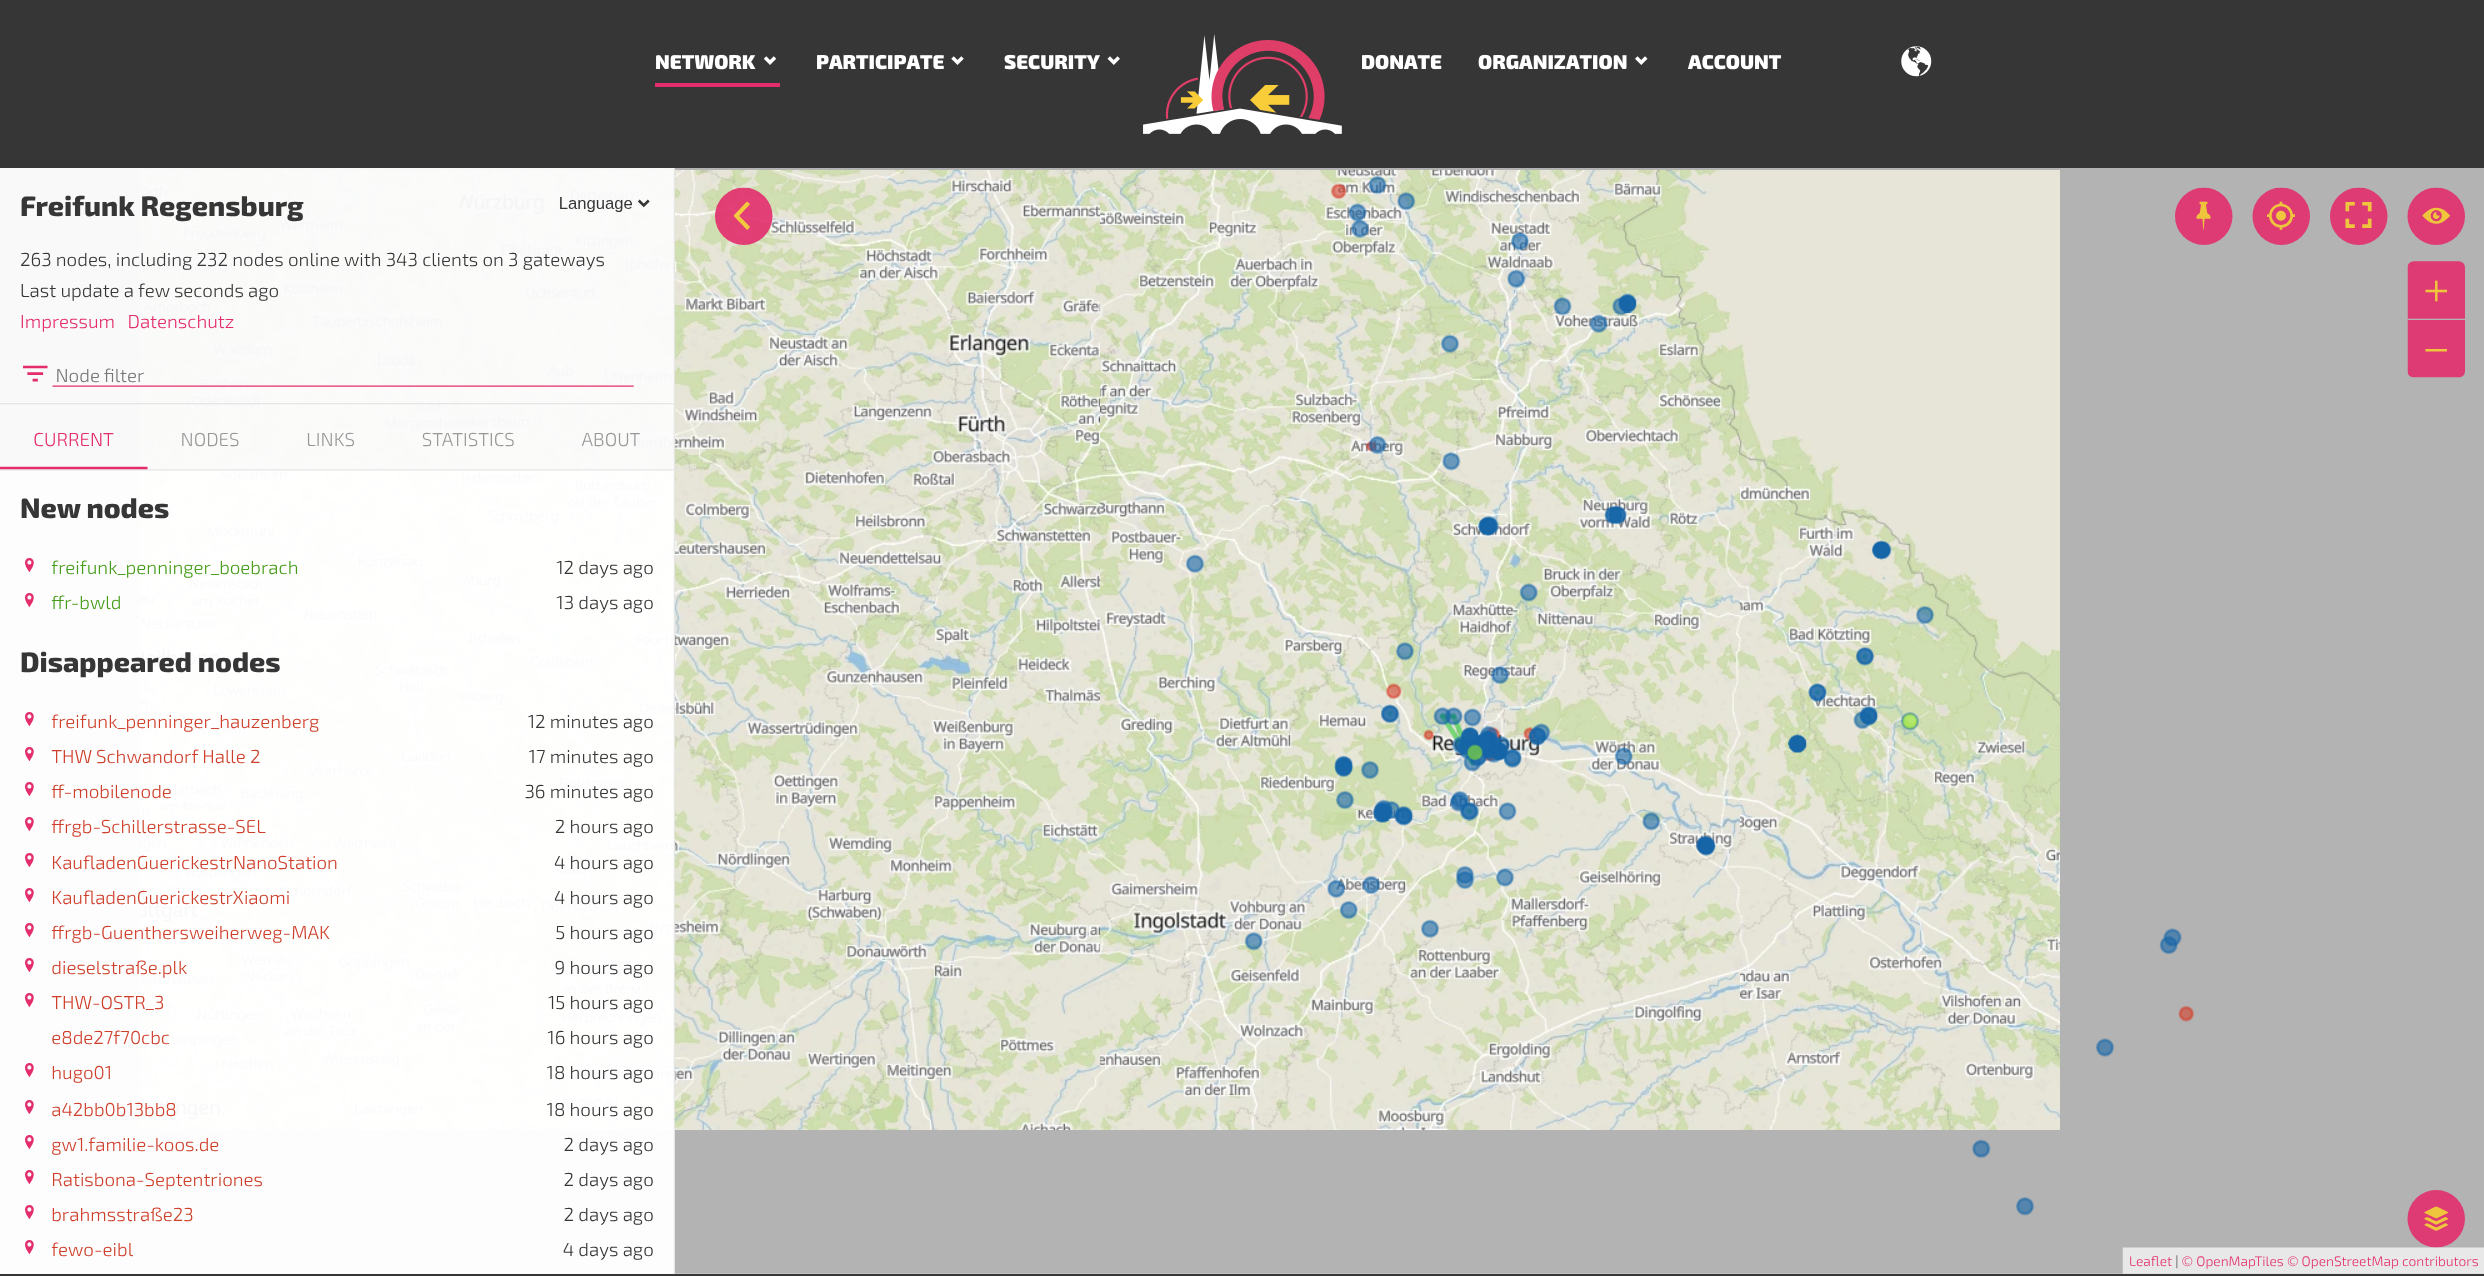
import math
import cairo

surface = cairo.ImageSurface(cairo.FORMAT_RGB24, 2484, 1276)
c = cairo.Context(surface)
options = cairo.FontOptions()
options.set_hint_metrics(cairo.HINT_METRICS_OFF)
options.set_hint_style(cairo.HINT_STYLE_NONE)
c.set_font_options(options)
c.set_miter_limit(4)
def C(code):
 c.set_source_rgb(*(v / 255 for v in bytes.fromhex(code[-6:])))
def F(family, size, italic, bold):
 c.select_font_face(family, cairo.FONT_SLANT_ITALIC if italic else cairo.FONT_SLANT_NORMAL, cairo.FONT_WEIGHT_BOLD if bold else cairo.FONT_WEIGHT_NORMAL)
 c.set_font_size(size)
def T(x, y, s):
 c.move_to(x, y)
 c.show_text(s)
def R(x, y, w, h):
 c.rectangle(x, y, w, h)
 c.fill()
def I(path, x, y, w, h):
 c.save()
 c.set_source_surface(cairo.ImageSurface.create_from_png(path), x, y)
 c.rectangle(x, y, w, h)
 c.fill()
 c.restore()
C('373636')
c.paint()
F('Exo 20 Black',20,0,0)
C('ffffff')
T(655,69,'NETWORK')
I('1.png',763,56,14,9)
C('e32d6d')
R(655,83,125,4)
C('ffffff')
T(816,69,'PARTICIPATE')
I('2.png',951,56,13,9)
T(1004,69,'SECURITY')
I('3.png',1107,56,13,9)
I('4.png',1143,34,199,100)
T(1361,69,'DONATE')
T(1478,69,'ORGANIZATION')
I('5.png',1635,56,13,9)
T(1688,69,'ACCOUNT')
I('6.png',1901,46,31,31)
I('7.png',0,168,2484,1106)
surface.write_to_png('o.png')
